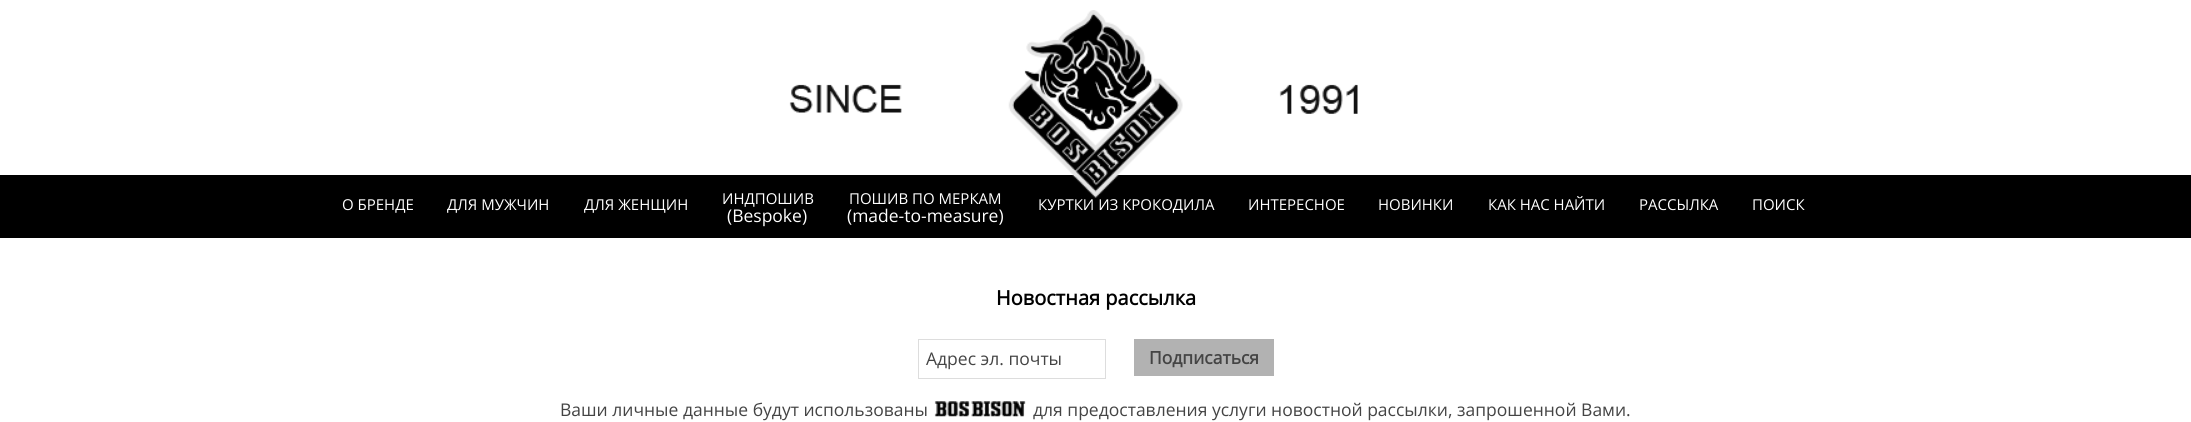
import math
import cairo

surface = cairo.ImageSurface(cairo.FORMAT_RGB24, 2191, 422)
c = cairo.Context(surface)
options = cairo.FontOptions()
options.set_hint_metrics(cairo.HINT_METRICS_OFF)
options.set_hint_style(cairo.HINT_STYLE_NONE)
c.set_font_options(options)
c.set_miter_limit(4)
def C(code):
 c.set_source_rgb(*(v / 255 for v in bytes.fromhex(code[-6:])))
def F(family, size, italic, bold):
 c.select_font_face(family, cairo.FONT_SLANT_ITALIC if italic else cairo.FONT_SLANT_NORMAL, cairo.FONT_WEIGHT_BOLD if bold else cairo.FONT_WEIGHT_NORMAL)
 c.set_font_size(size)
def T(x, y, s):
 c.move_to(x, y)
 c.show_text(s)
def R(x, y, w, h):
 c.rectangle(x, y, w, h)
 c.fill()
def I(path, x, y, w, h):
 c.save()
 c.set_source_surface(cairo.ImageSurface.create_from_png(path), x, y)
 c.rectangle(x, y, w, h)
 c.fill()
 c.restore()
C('ffffff')
c.paint()
C('000000')
R(0,175,2191,63)
I('1.png',789,84,113,29)
I('2.png',1008,10,175,188)
I('3.png',1279,84,79,30)
F('Open Sans',15,0,0)
C('ffffff')
T(342,210,'О БРЕНДЕ')
T(447,210,'ДЛЯ МУЖЧИН')
T(584,210,'ДЛЯ ЖЕНЩИН')
T(722,204,'ИНДПОШИВ')
F('Open Sans',17.5,0,0)
T(727,222,'(Bespoke)')
F('Open Sans',15,0,0)
T(849,204,'ПОШИВ ПО МЕРКАМ')
F('Open Sans',17.5,0,0)
T(847,222,'(made-to-measure)')
F('Open Sans',15,0,0)
T(1038,210,'КУРТКИ ИЗ КРОКОДИЛА')
T(1248,210,'ИНТЕРЕСНОЕ')
T(1378,210,'НОВИНКИ')
T(1488,210,'КАК НАС НАЙТИ')
T(1639,210,'РАССЫЛКА')
T(1752,210,'ПОИСК')
F('Open Sans',20,0,1)
C('000000')
T(996,305,'Новостная рассылка')
c.rectangle(918.5,339.5,187,39)
C('dddddd')
c.set_line_width(1)
c.stroke()
F('Open Sans',17.5,0,0)
C('444444')
T(926,365,'Адрес эл. почты')
C('b2b2b2')
R(1134,339,140,37)
F('Open Sans',17.5,0,1)
C('444444')
T(1149,364,'Подписаться')
F('Open Sans',17.5,0,0)
T(560,416,'Ваши личные данные будут использованы')
I('4.png',934,401,92,16)
T(1033,416,'для предоставления услуги новостной рассылки, запрошенной Вами.')
surface.write_to_png('o.png')
